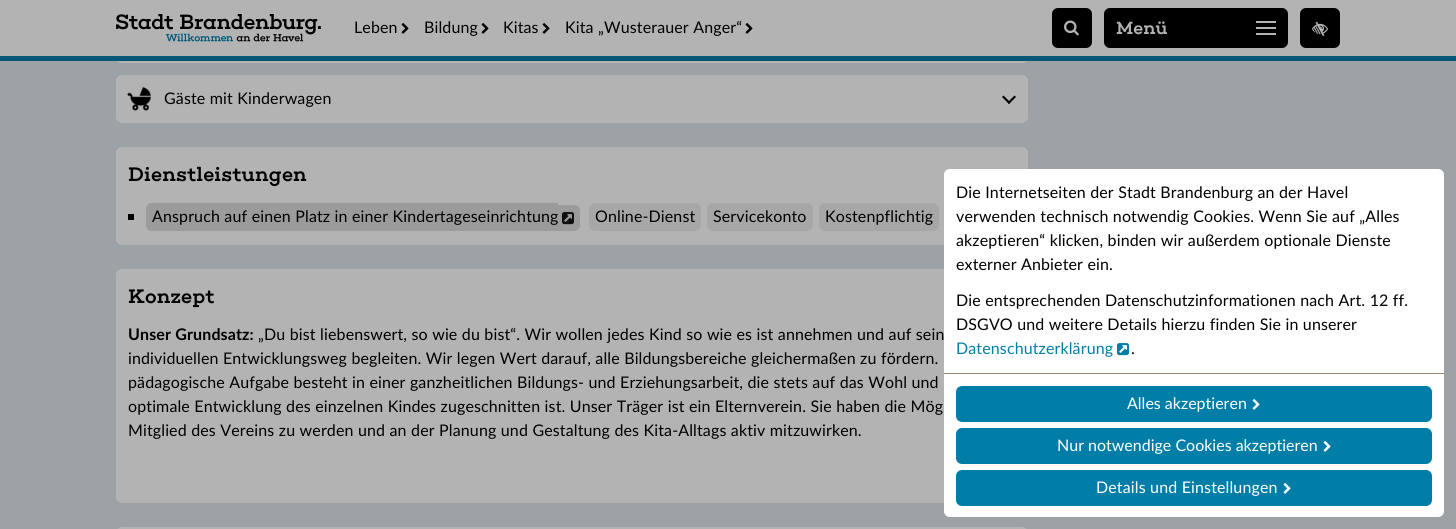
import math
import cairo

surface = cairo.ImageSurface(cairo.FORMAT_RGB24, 1456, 529)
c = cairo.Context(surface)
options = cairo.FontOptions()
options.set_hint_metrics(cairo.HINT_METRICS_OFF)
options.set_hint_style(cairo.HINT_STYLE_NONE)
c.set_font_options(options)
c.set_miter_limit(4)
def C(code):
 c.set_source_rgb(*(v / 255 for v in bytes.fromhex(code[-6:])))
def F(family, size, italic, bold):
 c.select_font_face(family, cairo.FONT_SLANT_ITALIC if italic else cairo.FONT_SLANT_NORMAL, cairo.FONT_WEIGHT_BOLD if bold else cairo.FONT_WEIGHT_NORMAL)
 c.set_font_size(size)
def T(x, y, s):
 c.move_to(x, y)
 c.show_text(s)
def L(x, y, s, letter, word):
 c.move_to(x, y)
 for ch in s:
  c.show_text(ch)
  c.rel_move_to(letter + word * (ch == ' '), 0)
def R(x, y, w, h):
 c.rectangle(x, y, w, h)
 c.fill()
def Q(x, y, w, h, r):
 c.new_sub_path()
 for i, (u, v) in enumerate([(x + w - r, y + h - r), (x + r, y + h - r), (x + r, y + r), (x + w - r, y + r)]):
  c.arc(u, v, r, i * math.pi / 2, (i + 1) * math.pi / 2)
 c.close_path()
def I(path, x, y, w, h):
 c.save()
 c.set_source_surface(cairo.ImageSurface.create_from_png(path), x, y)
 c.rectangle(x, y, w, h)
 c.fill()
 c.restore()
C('9ca2a5')
c.paint()
C('b3b3b3')
Q(116,15,912,48,6)
c.fill()
R(0,0,1456,56)
F('Lato',16,0,0)
C('000000')
L(354,33,'Leben',.12,0)
I('1.png',401,23,8,11)
L(424,33,'Bildung',.12,0)
I('1.png',481,23,8,11)
L(503,33,'Kitas',.12,0)
I('1.png',542,23,8,11)
L(565,33,'Kita „Wusterauer Anger“',.12,.2)
I('1.png',745,23,8,11)
C('005876')
R(0,56,1456,5)
I('2.png',116,14,205,28)
C('000000')
Q(1052,8,40,40,6)
c.fill()
I('3.png',1064,20,15,16)
Q(1104,8,184,40,6)
c.fill()
F('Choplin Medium',18,0,0)
C('b3b3b3')
T(1116,34,'Menü')
R(1256,21,20,2)
R(1256,27,20,2)
R(1256,33,20,2)
C('000000')
Q(1300,8,40,40,6)
c.fill()
I('4.png',1312,21,16,16)
C('b3b3b3')
Q(116,75,912,48,6)
c.fill()
I('5.png',127,87,25,27)
F('Lato',16,0,0)
C('000000')
L(164,104,'Gäste mit Kinderwagen',.12,.2)
c.new_path()
c.move_to(1014.5,95.5)
c.line_to(1016,97)
c.line_to(1009,104)
c.line_to(1007.5,102.5)
c.close_path()
c.fill()
c.new_path()
c.move_to(1003.5,95.5)
c.line_to(1010.5,102.5)
c.line_to(1009,104)
c.line_to(1002,97)
c.close_path()
c.fill()
C('b3b3b3')
Q(116,147,912,98,6)
c.fill()
F('Choplin Medium',20,0,0)
C('000000')
L(128,181,'Dienstleistungen',.12,0)
R(128,214,6,6)
C('9b9b9b')
c.new_path()
c.move_to(152,203)
c.line_to(558,203)
c.line_to(558,231)
c.line_to(152,231)
c.curve_to(148.5,231,146,228.5,146,225)
c.line_to(146,209)
c.curve_to(146,205.5,148.5,203,152,203)
c.close_path()
c.fill()
F('Lato',16,0,0)
C('000000')
L(152,222,'Anspruch auf einen Platz in einer Kindertageseinrichtung',.12,.2)
C('9b9b9b')
c.new_path()
c.move_to(558,205)
c.line_to(574,205)
c.curve_to(577.5,205,580,207.5,580,211)
c.line_to(580,225)
c.curve_to(580,228.5,577.5,231,574,231)
c.line_to(558,231)
c.close_path()
c.fill()
I('6.png',562,212,12,13)
C('a7a7a7')
Q(589,203,112,28,6)
c.fill()
C('000000')
L(595,222,'Online-Dienst',.12,0)
C('a7a7a7')
Q(707,203,106,28,6)
c.fill()
C('000000')
L(713,222,'Servicekonto',.12,0)
C('a7a7a7')
Q(819,203,120,28,6)
c.fill()
C('000000')
L(825,222,'Kostenpflichtig',.12,0)
C('b3b3b3')
Q(116,269,912,234,6)
c.fill()
F('Choplin Medium',20,0,0)
C('000000')
L(128,303,'Konzept',.12,0)
F('Lato',16,0,1)
L(128,340,'Unser Grundsatz:',.12,.2)
F('Lato',16,0,0)
L(258,340,'„Du bist liebenswert, so wie du bist“. Wir wollen jedes Kind so wie es ist annehmen und auf sein',.12,.2)
L(128,364,'individuellen Entwicklungsweg begleiten. Wir legen Wert darauf, alle Bildungsbereiche gleichermaßen zu fördern.',.12,.2)
L(128,388,'pädagogische Aufgabe besteht in einer ganzheitlichen Bildungs- und Erziehungsarbeit, die stets auf das Wohl und',.12,.2)
L(128,412,'optimale Entwicklung des einzelnen Kindes zugeschnitten ist. Unser Träger ist ein Elternverein. Sie haben die Mög',.12,.2)
L(128,436,'Mitglied des Vereins zu werden und an der Planung und Gestaltung des Kita-Alltags aktiv mitzuwirken.',.12,.2)
C('b3b3b3')
Q(116,527,912,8,6)
c.fill()
C('ffffff')
c.new_path()
c.move_to(950,169)
c.line_to(1438,169)
c.curve_to(1441.5,169,1444,171.5,1444,175)
c.line_to(1444,373)
c.line_to(944,373)
c.line_to(944,175)
c.curve_to(944,171.5,946.5,169,950,169)
c.close_path()
c.fill()
C('000000')
L(956,198,'Die Internetseiten der Stadt Brandenburg an der Havel',.12,.2)
L(956,222,'verwenden technisch notwendig Cookies. Wenn Sie auf „Alles',.12,.2)
L(956,246,'akzeptieren“ klicken, binden wir außerdem optionale Dienste',.12,.2)
L(956,270,'externer Anbieter ein.',.12,.2)
L(956,306,'Die entsprechenden Datenschutzinformationen nach Art. 12 ff.',.12,.2)
L(956,330,'DSGVO und weitere Details hierzu finden Sie in unserer',.12,.2)
C('007ea8')
L(956,354,'Datenschutzerklärung',.12,0)
I('7.png',1117,343,12,13)
C('000000')
L(1131,354,'.',.12,0)
C('ffffff')
c.new_path()
c.move_to(944,373)
c.line_to(1444,373)
c.line_to(1444,511)
c.curve_to(1444,514.5,1441.5,517,1438,517)
c.line_to(950,517)
c.curve_to(946.5,517,944,514.5,944,511)
c.close_path()
c.fill()
C('96866d')
R(944,373,500,1)
C('007ea8')
Q(956,386,476,36,6)
c.fill()
C('ffffff')
T(1127,409,'Alles akzeptieren')
I('8.png',1252,399,8,11)
C('007ea8')
Q(956,428,476,36,6)
c.fill()
C('ffffff')
T(1057,451,'Nur notwendige Cookies akzeptieren')
I('8.png',1323,441,8,11)
C('007ea8')
Q(956,470,476,36,6)
c.fill()
C('ffffff')
L(1096,493,'Details und Einstellungen',.12,.2)
I('8.png',1283,483,8,11)
surface.write_to_png('o.png')
